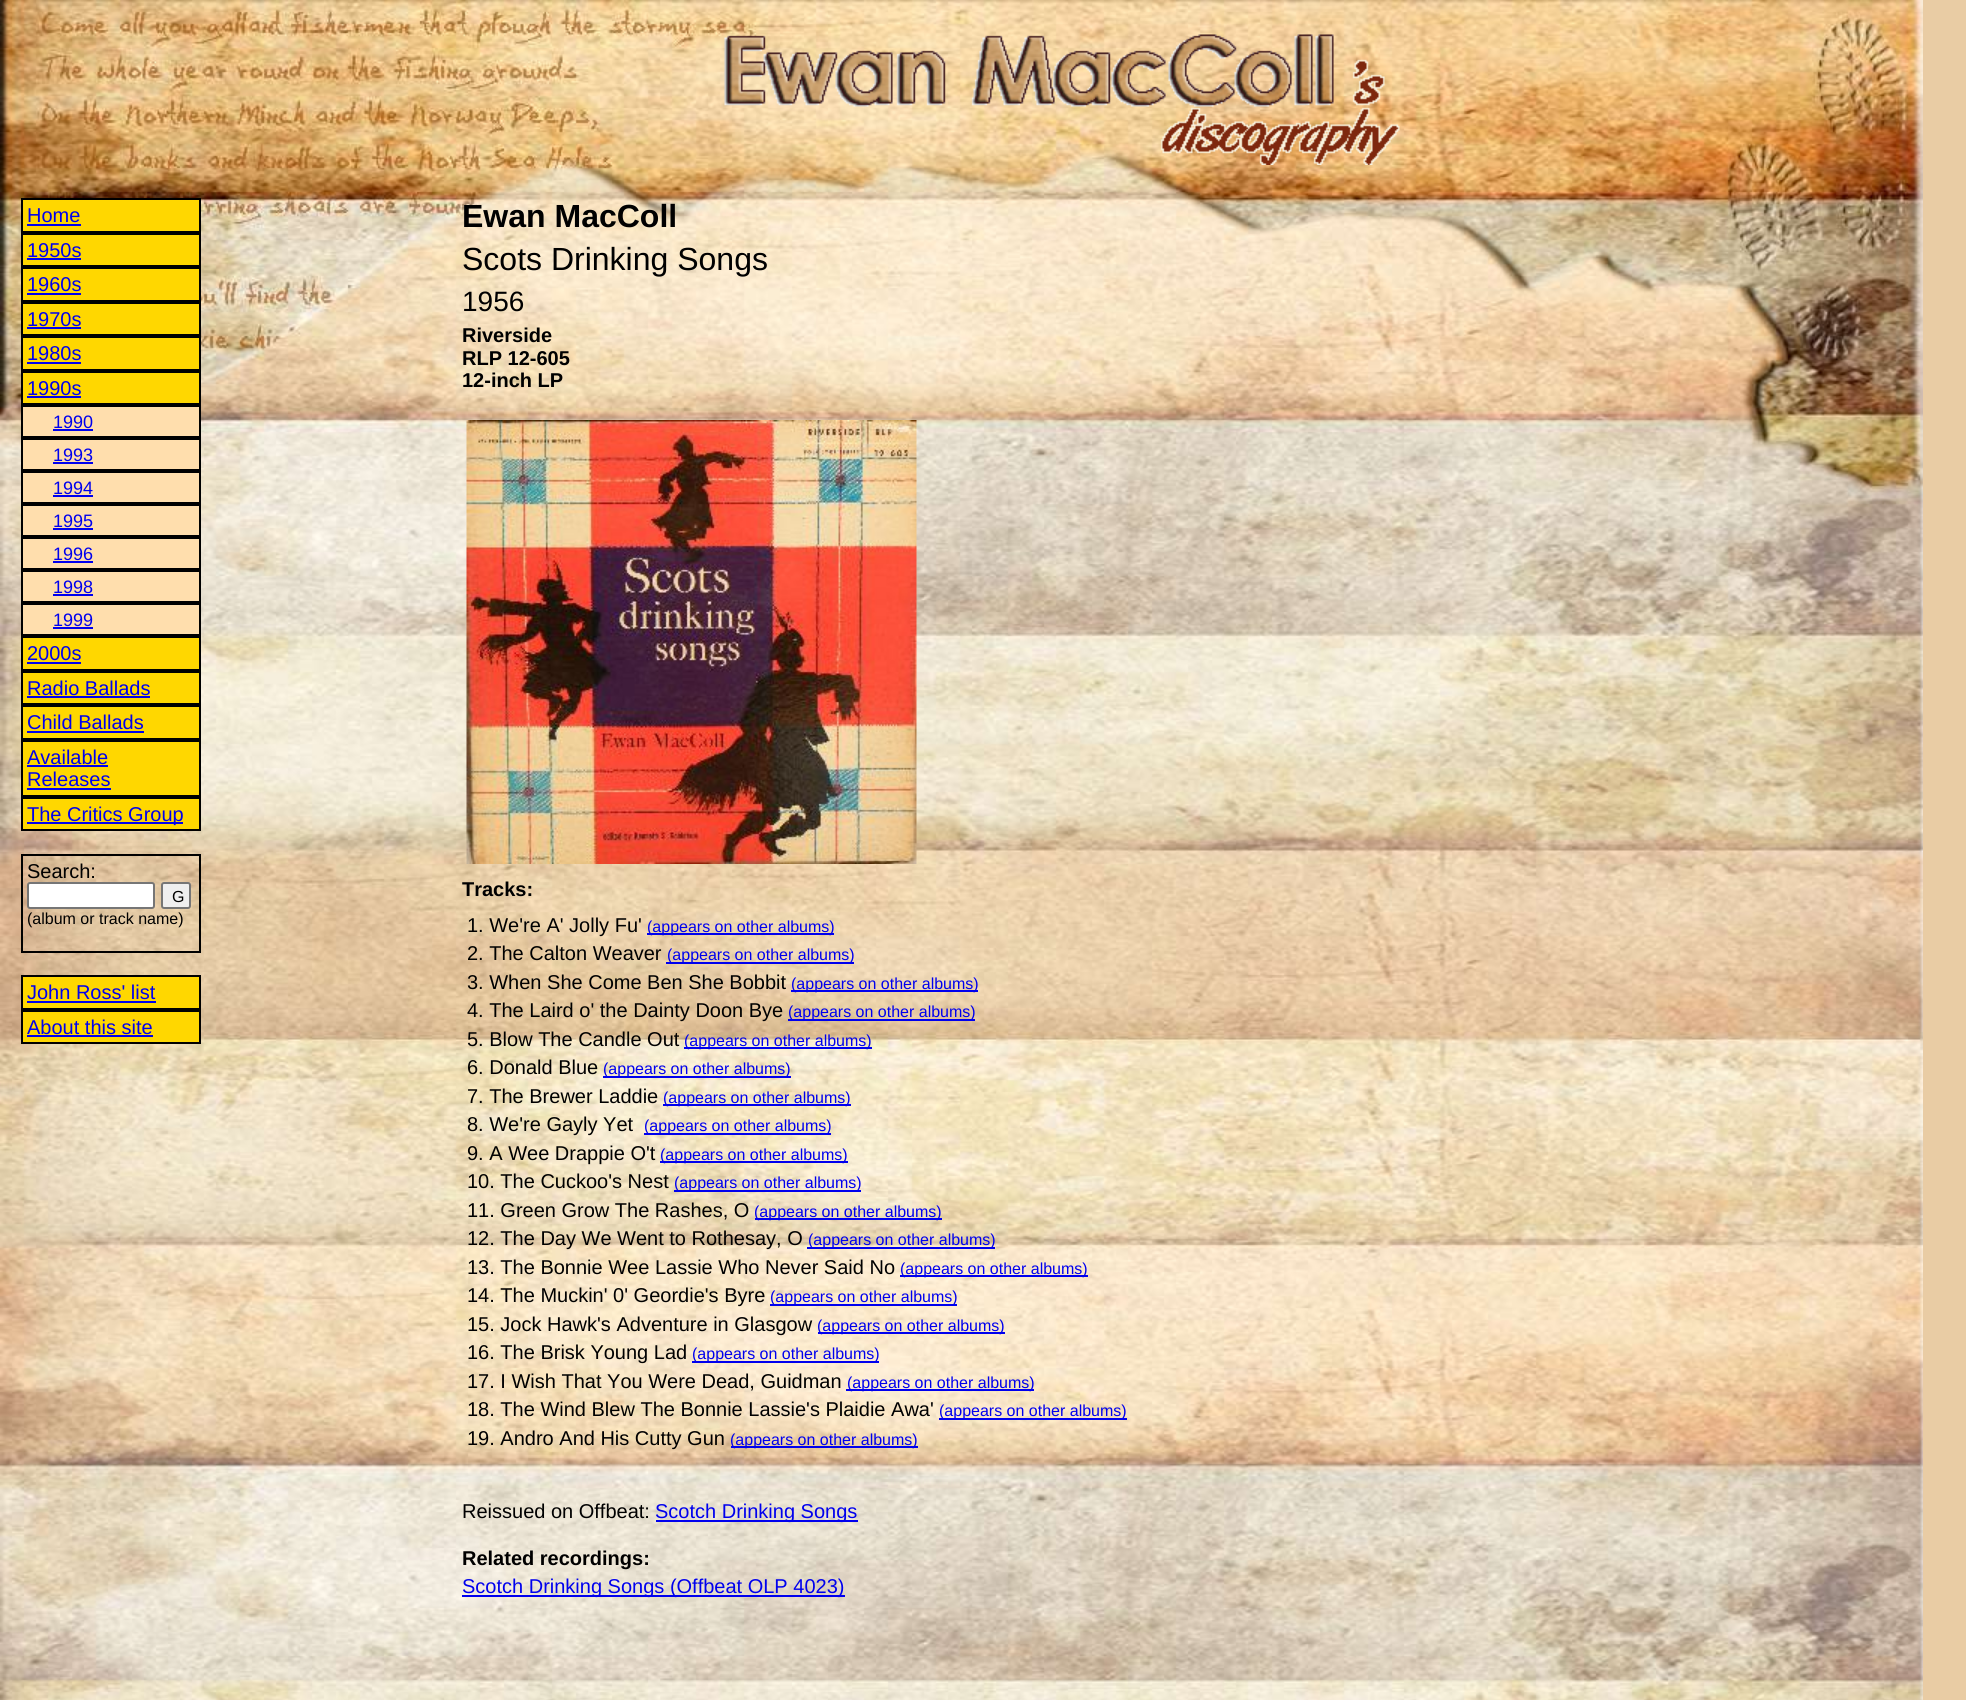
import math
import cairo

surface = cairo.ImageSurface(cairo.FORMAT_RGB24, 1966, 1700)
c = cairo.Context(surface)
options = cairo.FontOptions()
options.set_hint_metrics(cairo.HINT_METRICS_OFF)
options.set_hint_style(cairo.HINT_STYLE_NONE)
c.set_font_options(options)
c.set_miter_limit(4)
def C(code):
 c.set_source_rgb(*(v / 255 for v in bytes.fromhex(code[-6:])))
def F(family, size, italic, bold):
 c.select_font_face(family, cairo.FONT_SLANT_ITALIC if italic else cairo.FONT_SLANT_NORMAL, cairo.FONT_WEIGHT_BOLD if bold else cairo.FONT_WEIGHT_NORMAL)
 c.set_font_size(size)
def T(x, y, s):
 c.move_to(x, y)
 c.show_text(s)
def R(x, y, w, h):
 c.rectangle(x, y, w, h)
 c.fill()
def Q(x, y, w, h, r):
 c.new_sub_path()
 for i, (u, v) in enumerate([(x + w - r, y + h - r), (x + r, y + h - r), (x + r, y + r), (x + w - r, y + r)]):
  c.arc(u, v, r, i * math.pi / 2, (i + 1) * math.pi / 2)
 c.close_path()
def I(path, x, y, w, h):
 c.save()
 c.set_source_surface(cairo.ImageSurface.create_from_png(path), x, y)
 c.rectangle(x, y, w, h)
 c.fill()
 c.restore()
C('e9cca4')
c.paint()
I('1.png',0,0,1923,1700)
I('2.png',724,34,676,131)
C('ffd700')
c.rectangle(22,199,178,33)
c.fill_preserve()
C('000000')
c.stroke()
F('Liberation Sans',20,0,0)
C('0000ee')
T(27,222,'Home')
R(27,224,54,2)
C('ffd700')
c.rectangle(22,234,178,32)
c.fill_preserve()
C('000000')
c.stroke()
C('0000ee')
T(27,257,'1950s')
R(27,258,54,2)
C('ffd700')
c.rectangle(22,268,178,33)
c.fill_preserve()
C('000000')
c.stroke()
C('0000ee')
T(27,291,'1960s')
R(27,293,54,2)
C('ffd700')
c.rectangle(22,303,178,32)
c.fill_preserve()
C('000000')
c.stroke()
C('0000ee')
T(27,326,'1970s')
R(27,327,54,2)
C('ffd700')
c.rectangle(22,337,178,33)
c.fill_preserve()
C('000000')
c.stroke()
C('0000ee')
T(27,360,'1980s')
R(27,362,54,2)
C('ffd700')
c.rectangle(22,372,178,32)
c.fill_preserve()
C('000000')
c.stroke()
C('0000ee')
T(27,395,'1990s')
R(27,396,54,2)
C('ffdead')
c.rectangle(22,406,178,31)
c.fill_preserve()
C('000000')
c.stroke()
F('Liberation Sans',18,0,0)
C('0000ee')
T(53,428,'1990')
R(53,429,40,2)
C('ffdead')
c.rectangle(22,439,178,31)
c.fill_preserve()
C('000000')
c.stroke()
C('0000ee')
T(53,461,'1993')
R(53,462,40,2)
C('ffdead')
c.rectangle(22,472,178,31)
c.fill_preserve()
C('000000')
c.stroke()
C('0000ee')
T(53,494,'1994')
R(53,495,40,2)
C('ffdead')
c.rectangle(22,505,178,31)
c.fill_preserve()
C('000000')
c.stroke()
C('0000ee')
T(53,527,'1995')
R(53,528,40,2)
C('ffdead')
c.rectangle(22,538,178,31)
c.fill_preserve()
C('000000')
c.stroke()
C('0000ee')
T(53,560,'1996')
R(53,561,40,2)
C('ffdead')
c.rectangle(22,571,178,31)
c.fill_preserve()
C('000000')
c.stroke()
C('0000ee')
T(53,593,'1998')
R(53,594,40,2)
C('ffdead')
c.rectangle(22,604,178,31)
c.fill_preserve()
C('000000')
c.stroke()
C('0000ee')
T(53,626,'1999')
R(53,627,40,2)
C('ffd700')
c.rectangle(22,637,178,33)
c.fill_preserve()
C('000000')
c.stroke()
F('Liberation Sans',20,0,0)
C('0000ee')
T(27,660,'2000s')
R(27,662,54,2)
C('ffd700')
c.rectangle(22,672,178,32)
c.fill_preserve()
C('000000')
c.stroke()
C('0000ee')
T(27,695,'Radio Ballads')
R(27,696,123,2)
C('ffd700')
c.rectangle(22,706,178,33)
c.fill_preserve()
C('000000')
c.stroke()
C('0000ee')
T(27,729,'Child Ballads')
R(27,731,117,2)
C('ffd700')
c.rectangle(22,741,178,55)
c.fill_preserve()
C('000000')
c.stroke()
C('0000ee')
T(27,764,'Available')
R(27,765,81,2)
T(27,786,'Releases')
R(27,788,84,2)
C('ffd700')
c.rectangle(22,798,178,32)
c.fill_preserve()
C('000000')
c.stroke()
C('0000ee')
R(27,822,156,2)
T(27,821,'The Critics Group')
c.rectangle(22,855,178,97)
C('000000')
c.stroke()
T(27,878,'Search:')
C('ffffff')
Q(28,883,126,25,2)
c.fill_preserve()
C('767676')
c.stroke()
C('efefef')
Q(162,883,28,25,2)
c.fill_preserve()
C('767676')
c.stroke()
F('Liberation Sans',16,0,0)
C('000000')
T(172,902,'G')
T(27,924,'(album or track name)')
C('ffd700')
c.rectangle(22,976,178,33)
c.fill_preserve()
C('000000')
c.stroke()
F('Liberation Sans',20,0,0)
C('0000ee')
T(27,999,'John Ross\' list')
R(27,1001,129,2)
C('ffd700')
c.rectangle(22,1011,178,32)
c.fill_preserve()
C('000000')
c.stroke()
C('0000ee')
T(27,1034,'About this site')
R(27,1035,126,2)
F('Liberation Sans',32,0,1)
C('000000')
T(462,227,'Ewan MacColl')
F('Liberation Sans',32,0,0)
T(462,270,'Scots Drinking Songs')
F('Liberation Sans',28,0,0)
T(462,311,'1956')
F('Liberation Sans',20,0,1)
T(462,342,'Riverside')
T(462,365,'RLP 12-605')
T(462,387,'12-inch LP')
I('3.png',466,420,451,444)
T(462,896,'Tracks:')
F('Liberation Sans',20,0,0)
T(467,932,'1. We\'re A\' Jolly Fu\'')
C('0000ee')
R(647,933,187,2)
F('Liberation Sans',16,0,0)
T(647,932,'(appears on other albums)')
F('Liberation Sans',20,0,0)
C('000000')
T(467,960,'2. The Calton Weaver')
C('0000ee')
R(666,962,188,2)
F('Liberation Sans',16,0,0)
T(667,960,'(appears on other albums)')
F('Liberation Sans',20,0,0)
C('000000')
T(467,989,'3. When She Come Ben She Bobbit')
C('0000ee')
R(791,990,187,2)
F('Liberation Sans',16,0,0)
T(791,989,'(appears on other albums)')
F('Liberation Sans',20,0,0)
C('000000')
T(467,1017,'4. The Laird o\' the Dainty Doon Bye')
C('0000ee')
R(788,1019,187,2)
F('Liberation Sans',16,0,0)
T(788,1017,'(appears on other albums)')
F('Liberation Sans',20,0,0)
C('000000')
T(467,1046,'5. Blow The Candle Out')
C('0000ee')
R(684,1047,188,2)
F('Liberation Sans',16,0,0)
T(684,1046,'(appears on other albums)')
F('Liberation Sans',20,0,0)
C('000000')
T(467,1074,'6. Donald Blue')
C('0000ee')
R(603,1076,188,2)
F('Liberation Sans',16,0,0)
T(603,1074,'(appears on other albums)')
F('Liberation Sans',20,0,0)
C('000000')
T(467,1103,'7. The Brewer Laddie')
C('0000ee')
R(663,1104,188,2)
F('Liberation Sans',16,0,0)
T(663,1103,'(appears on other albums)')
F('Liberation Sans',20,0,0)
C('000000')
T(467,1131,'8. We\'re Gayly Yet')
C('0000ee')
R(644,1133,187,2)
F('Liberation Sans',16,0,0)
T(644,1131,'(appears on other albums)')
F('Liberation Sans',20,0,0)
C('000000')
T(467,1160,'9. A Wee Drappie O\'t')
C('0000ee')
R(660,1161,188,2)
F('Liberation Sans',16,0,0)
T(660,1160,'(appears on other albums)')
F('Liberation Sans',20,0,0)
C('000000')
T(467,1188,'10. The Cuckoo\'s Nest')
C('0000ee')
R(674,1190,187,2)
F('Liberation Sans',16,0,0)
T(674,1188,'(appears on other albums)')
F('Liberation Sans',20,0,0)
C('000000')
T(467,1217,'11. Green Grow The Rashes, O')
C('0000ee')
R(755,1218,187,2)
F('Liberation Sans',16,0,0)
T(754,1217,'(appears on other albums)')
F('Liberation Sans',20,0,0)
C('000000')
T(467,1245,'12. The Day We Went to Rothesay, O')
C('0000ee')
R(807,1247,188,2)
F('Liberation Sans',16,0,0)
T(808,1245,'(appears on other albums)')
F('Liberation Sans',20,0,0)
C('000000')
T(467,1274,'13. The Bonnie Wee Lassie Who Never Said No')
C('0000ee')
R(900,1275,188,2)
F('Liberation Sans',16,0,0)
T(900,1274,'(appears on other albums)')
F('Liberation Sans',20,0,0)
C('000000')
T(467,1302,'14. The Muckin\' 0\' Geordie\'s Byre')
C('0000ee')
R(770,1304,187,2)
F('Liberation Sans',16,0,0)
T(770,1302,'(appears on other albums)')
F('Liberation Sans',20,0,0)
C('000000')
T(467,1331,'15. Jock Hawk\'s Adventure in Glasgow')
C('0000ee')
R(818,1332,187,2)
F('Liberation Sans',16,0,0)
T(817,1331,'(appears on other albums)')
F('Liberation Sans',20,0,0)
C('000000')
T(467,1359,'16. The Brisk Young Lad')
C('0000ee')
R(692,1361,187,2)
F('Liberation Sans',16,0,0)
T(692,1359,'(appears on other albums)')
F('Liberation Sans',20,0,0)
C('000000')
T(467,1388,'17. I Wish That You Were Dead, Guidman')
C('0000ee')
R(846,1389,188,2)
F('Liberation Sans',16,0,0)
T(847,1388,'(appears on other albums)')
F('Liberation Sans',20,0,0)
C('000000')
T(467,1416,'18. The Wind Blew The Bonnie Lassie\'s Plaidie Awa\'')
C('0000ee')
R(939,1418,188,2)
F('Liberation Sans',16,0,0)
T(939,1416,'(appears on other albums)')
F('Liberation Sans',20,0,0)
C('000000')
T(467,1445,'19. Andro And His Cutty Gun')
C('0000ee')
R(731,1446,187,2)
F('Liberation Sans',16,0,0)
T(730,1445,'(appears on other albums)')
F('Liberation Sans',20,0,0)
C('000000')
T(462,1518,'Reissued on Offbeat:')
C('0000ee')
R(656,1520,202,2)
T(655,1518,'Scotch Drinking Songs')
F('Liberation Sans',20,0,1)
C('000000')
T(462,1565,'Related recordings:')
C('0000ee')
R(462,1595,383,2)
F('Liberation Sans',20,0,0)
T(462,1593,'Scotch Drinking Songs (Offbeat OLP 4023)')
surface.write_to_png('o.png')
